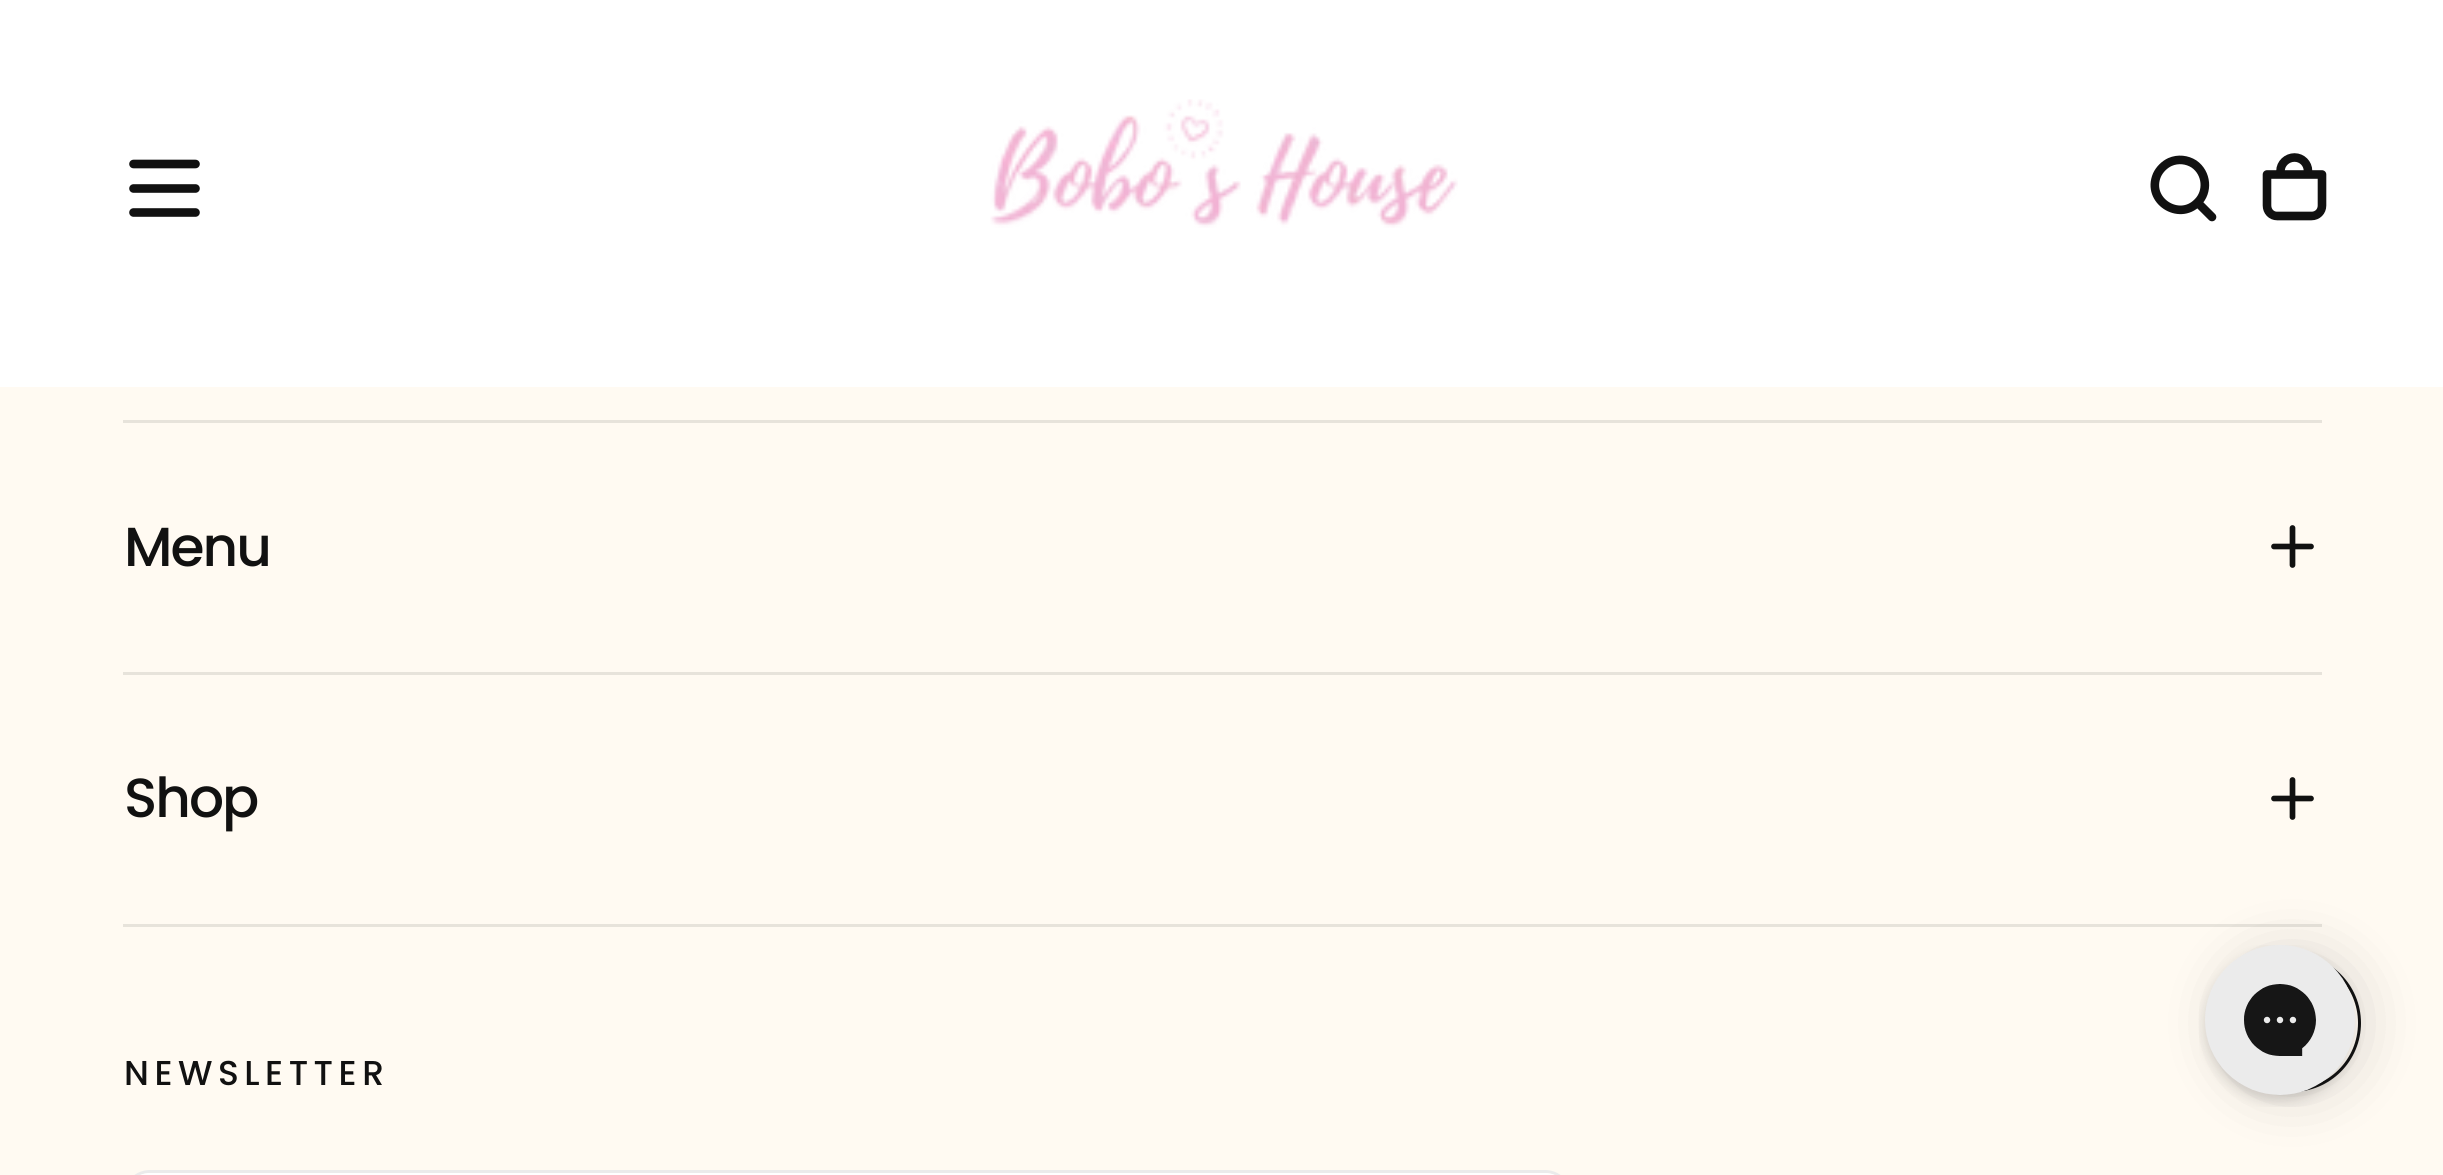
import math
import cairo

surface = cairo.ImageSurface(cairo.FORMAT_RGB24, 2443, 1175)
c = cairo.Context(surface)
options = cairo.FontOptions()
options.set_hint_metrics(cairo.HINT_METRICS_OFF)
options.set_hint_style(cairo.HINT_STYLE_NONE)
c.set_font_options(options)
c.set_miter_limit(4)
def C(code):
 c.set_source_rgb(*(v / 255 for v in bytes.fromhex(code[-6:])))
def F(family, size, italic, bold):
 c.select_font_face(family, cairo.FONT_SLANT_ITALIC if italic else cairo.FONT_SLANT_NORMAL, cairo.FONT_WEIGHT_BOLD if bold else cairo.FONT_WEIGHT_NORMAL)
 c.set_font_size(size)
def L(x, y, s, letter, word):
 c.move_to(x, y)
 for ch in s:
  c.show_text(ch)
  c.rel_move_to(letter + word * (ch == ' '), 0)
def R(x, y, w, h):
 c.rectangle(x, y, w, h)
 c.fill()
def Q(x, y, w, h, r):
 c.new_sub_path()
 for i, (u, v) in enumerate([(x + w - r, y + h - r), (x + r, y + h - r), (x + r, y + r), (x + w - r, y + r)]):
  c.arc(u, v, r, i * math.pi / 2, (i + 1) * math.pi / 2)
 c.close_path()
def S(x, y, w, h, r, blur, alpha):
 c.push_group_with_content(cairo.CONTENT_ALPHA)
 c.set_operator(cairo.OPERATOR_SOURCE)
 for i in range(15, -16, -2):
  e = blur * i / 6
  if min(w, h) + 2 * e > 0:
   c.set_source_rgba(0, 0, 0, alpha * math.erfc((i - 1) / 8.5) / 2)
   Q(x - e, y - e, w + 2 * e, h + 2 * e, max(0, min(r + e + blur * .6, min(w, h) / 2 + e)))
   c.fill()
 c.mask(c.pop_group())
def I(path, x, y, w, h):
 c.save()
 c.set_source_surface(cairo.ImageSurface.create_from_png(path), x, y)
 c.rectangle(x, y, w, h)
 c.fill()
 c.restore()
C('fffaf2')
c.paint()
C('ffffff')
R(0,0,2443,387)
c.new_path()
c.move_to(133.5,188.5)
c.line_to(195.5,188.5)
c.move_to(133.5,164)
c.line_to(195.5,164)
c.move_to(133.5,212.5)
c.line_to(195.5,212.5)
C('111111')
c.set_line_width(8.6)
c.set_line_cap(cairo.LINE_CAP_ROUND)
c.stroke()
I('1.png',990,99,468,129)
c.new_path()
c.move_to(2212,217)
c.line_to(2197.5,202.5)
c.move_to(2197.5,202.5)
c.curve_to(2208.5,192,2207,173,2194,164)
c.curve_to(2187,159.5,2178,158.5,2170,162)
c.curve_to(2164.5,164.5,2159.5,169.5,2157,175)
c.curve_to(2146,200.5,2179,221.5,2197.5,202.5)
c.close_path()
c.set_line_join(cairo.LINE_JOIN_ROUND)
c.stroke()
c.new_path()
c.move_to(2267,174.5)
c.line_to(2322,174.5)
c.line_to(2322,205.5)
c.curve_to(2322,211.5,2317.5,216,2311.5,216)
c.line_to(2277,216)
c.curve_to(2271.5,216,2267,211.5,2267,205.5)
c.close_path()
c.set_line_cap(cairo.LINE_CAP_BUTT)
c.stroke()
c.new_path()
c.move_to(2280.5,174.5)
c.line_to(2280.5,171)
c.curve_to(2280.5,163.5,2287,157.5,2294.5,157.5)
c.curve_to(2302,157.5,2308,163.5,2308,171)
c.line_to(2308,174.5)
c.stroke()
C('e7e3db')
R(123,420,2199,3)
R(123,672,2199,3)
F('Poppins Medium',55,0,0)
C('111111')
L(124,566,'Menu',-2,0)
c.new_path()
c.move_to(2292.5,528)
c.line_to(2292.5,546.5)
c.move_to(2292.5,546.5)
c.line_to(2292.5,565)
c.move_to(2292.5,546.5)
c.line_to(2274,546.5)
c.move_to(2292.5,546.5)
c.line_to(2311,546.5)
c.set_line_width(5.7)
c.set_line_cap(cairo.LINE_CAP_ROUND)
c.set_line_join(cairo.LINE_JOIN_MITER)
c.stroke()
C('e7e3db')
R(123,924,2199,3)
C('111111')
L(124,817,'Shop',-2,0)
c.new_path()
c.move_to(2292.5,780)
c.line_to(2292.5,798.5)
c.move_to(2292.5,798.5)
c.line_to(2292.5,817)
c.move_to(2292.5,798.5)
c.line_to(2274,798.5)
c.move_to(2292.5,798.5)
c.line_to(2311,798.5)
c.stroke()
F('Poppins Medium',34.5,0,0)
L(124,1085,'NEWSLETTER',5.5,0)
Q(124.5,1171.5,1446,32,25.5)
C('ebebeb')
c.set_line_width(3)
c.set_line_cap(cairo.LINE_CAP_BUTT)
c.stroke()
C('ffffff')
c.new_path()
c.move_to(150,1173)
c.line_to(1191,1173)
c.line_to(1191,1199)
c.line_to(150,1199)
c.curve_to(136.5,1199,126,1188.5,126,1175)
c.line_to(126,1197)
c.curve_to(126,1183.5,136.5,1173,150,1173)
c.close_path()
c.fill()
c.new_path()
c.move_to(1191,1173)
c.line_to(1545,1173)
c.curve_to(1558.5,1173,1569,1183.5,1569,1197)
c.line_to(1569,1175)
c.curve_to(1569,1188.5,1558.5,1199,1545,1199)
c.line_to(1191,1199)
c.close_path()
c.fill()
c.save()
c.set_fill_rule(cairo.FILL_RULE_EVEN_ODD)
c.new_path()
c.move_to(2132,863)
c.line_to(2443,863)
c.line_to(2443,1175)
c.line_to(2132,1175)
c.close_path()
c.move_to(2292,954)
c.curve_to(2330,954,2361,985,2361,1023)
c.curve_to(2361,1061,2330,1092,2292,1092)
c.curve_to(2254,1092,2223,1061,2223,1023)
c.curve_to(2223,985,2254,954,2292,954)
c.close_path()
c.clip()
C('000000')
S(2223,954,138,138,69,30,.15)
c.restore()
c.arc(2292,1023,67.5,0,2 * math.pi)
C('111111')
c.stroke()
I('2.png',2199,945,162,162)
surface.write_to_png('o.png')
